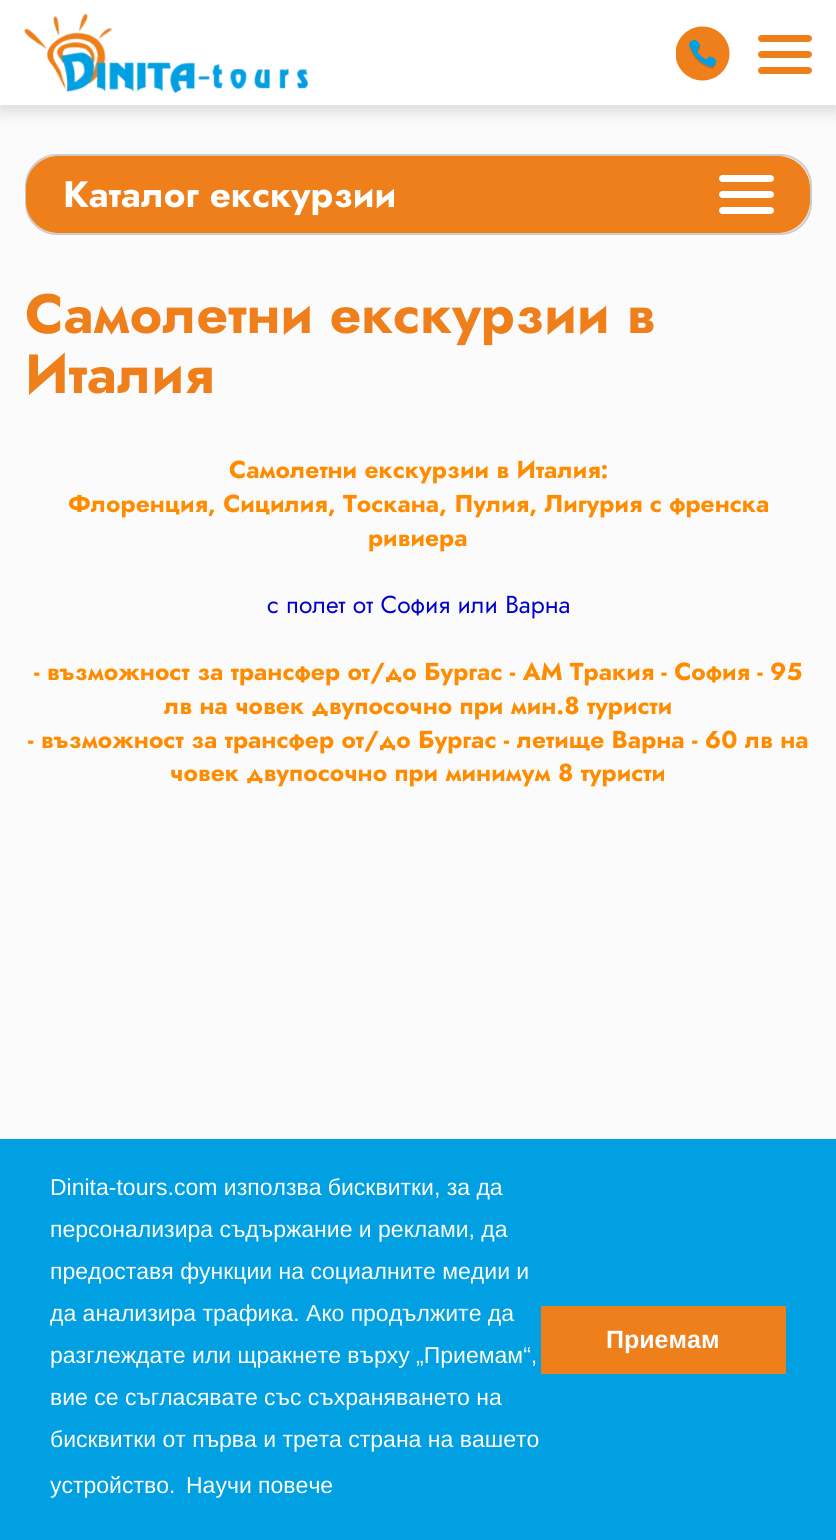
import math
import cairo

surface = cairo.ImageSurface(cairo.FORMAT_RGB24, 836, 1540)
c = cairo.Context(surface)
options = cairo.FontOptions()
options.set_hint_metrics(cairo.HINT_METRICS_OFF)
options.set_hint_style(cairo.HINT_STYLE_NONE)
c.set_font_options(options)
c.set_miter_limit(4)
def C(code):
 c.set_source_rgb(*(v / 255 for v in bytes.fromhex(code[-6:])))
def F(family, size, italic, bold):
 c.select_font_face(family, cairo.FONT_SLANT_ITALIC if italic else cairo.FONT_SLANT_NORMAL, cairo.FONT_WEIGHT_BOLD if bold else cairo.FONT_WEIGHT_NORMAL)
 c.set_font_size(size)
def T(x, y, s):
 c.move_to(x, y)
 c.show_text(s)
def R(x, y, w, h):
 c.rectangle(x, y, w, h)
 c.fill()
def Q(x, y, w, h, r):
 c.new_sub_path()
 for i, (u, v) in enumerate([(x + w - r, y + h - r), (x + r, y + h - r), (x + r, y + r), (x + w - r, y + r)]):
  c.arc(u, v, r, i * math.pi / 2, (i + 1) * math.pi / 2)
 c.close_path()
def S(x, y, w, h, r, blur, alpha):
 c.push_group_with_content(cairo.CONTENT_ALPHA)
 c.set_operator(cairo.OPERATOR_SOURCE)
 for i in range(15, -16, -2):
  e = blur * i / 6
  if min(w, h) + 2 * e > 0:
   c.set_source_rgba(0, 0, 0, alpha * math.erfc((i - 1) / 8.5) / 2)
   Q(x - e, y - e, w + 2 * e, h + 2 * e, max(0, min(r + e + blur * .6, min(w, h) / 2 + e)))
   c.fill()
 c.mask(c.pop_group())
def I(path, x, y, w, h):
 c.save()
 c.set_source_surface(cairo.ImageSurface.create_from_png(path), x, y)
 c.rectangle(x, y, w, h)
 c.fill()
 c.restore()
C('fbfbfb')
c.paint()
C('000000')
S(0,5,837,105,0,9,.15)
C('ffffff')
R(0,0,836,105)
I('1.png',24,13,284,80)
I('2.png',676,26,54,55)
C('ef7f1a')
Q(758,51,54,7,3.5)
c.fill()
Q(758,35,54,7,3.5)
c.fill()
Q(758,67,54,7,3.5)
c.fill()
Q(26,155,785,79,31)
C('cccccc')
c.stroke()
C('ef7f1a')
Q(26,156,784,77,32)
c.fill()
F('Jost',36.75,0,1)
C('ffffff')
T(63,207,'Каталог екскурзии')
Q(719,191,55,7,3.5)
c.fill()
Q(719,175,55,7,3.5)
c.fill()
Q(719,207,55,7,3.5)
c.fill()
F('Jost',55.1,0,1)
C('ef7f1a')
T(25,333,'Самолетни екскурзии в')
T(25,393,'Италия')
F('Jost',24.5,0,1)
C('ff8c00')
T(229,478,'Самолетни екскурзии в Италия:')
T(68,512,'Флоренция, Сицилия, Тоскана, Пулия, Лигурия с френска')
T(368,546,'ривиера')
F('Jost',24.5,0,0)
C('0000cd')
T(267,613,'с полет от София или Варна')
F('Jost',24.5,0,1)
C('ff8c00')
T(34,680,'- възможност за трансфер от/до Бургас - АМ Тракия - София - 95')
T(164,714,'лв на човек двупосочно при мин.8 туристи')
T(28,748,'- възможност за трансфер от/до Бургас - летище Варна - 60 лв на')
T(170,781,'човек двупосочно при минимум 8 туристи')
C('00a0e3')
R(0,1139,836,401)
F('Liberation Sans',23,0,0)
C('ffffff')
T(50,1195,'Dinita-tours.com използва бисквитки, за да')
T(50,1237,'персонализира съдържание и реклами, да')
T(50,1279,'предоставя функции на социалните медии и')
T(50,1321,'да анализира трафика. Ако продължите да')
T(50,1363,'разглеждате или щракнете върху „Приемам“,')
T(50,1405,'вие се съгласявате със съхраняването на')
T(50,1447,'бисквитки от първа и трета страна на вашето')
T(50,1493,'устройство.')
T(186,1493,'Научи повече')
C('ef7f1a')
R(541,1306,245,68)
F('Liberation Sans',25,0,1)
C('ffffff')
T(606,1348,'Приемам')
surface.write_to_png('o.png')
